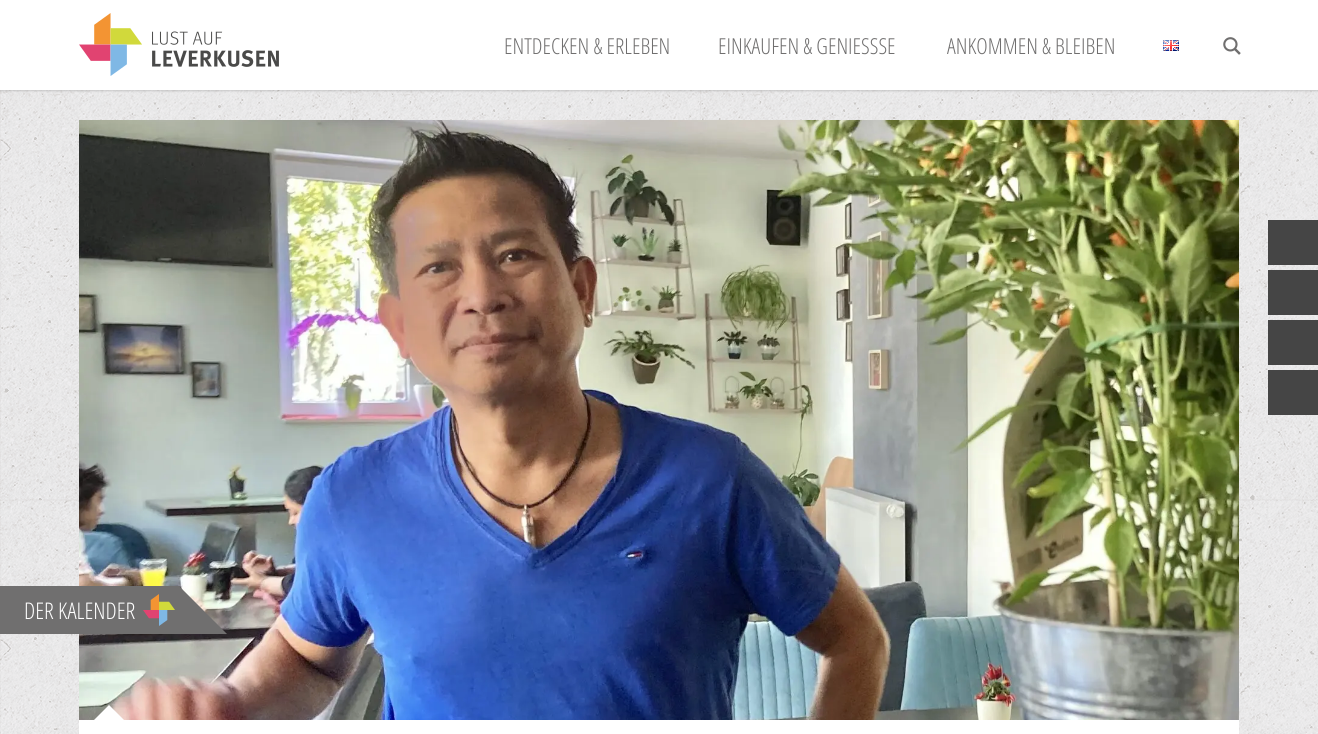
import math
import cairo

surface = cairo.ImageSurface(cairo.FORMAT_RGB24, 1318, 734)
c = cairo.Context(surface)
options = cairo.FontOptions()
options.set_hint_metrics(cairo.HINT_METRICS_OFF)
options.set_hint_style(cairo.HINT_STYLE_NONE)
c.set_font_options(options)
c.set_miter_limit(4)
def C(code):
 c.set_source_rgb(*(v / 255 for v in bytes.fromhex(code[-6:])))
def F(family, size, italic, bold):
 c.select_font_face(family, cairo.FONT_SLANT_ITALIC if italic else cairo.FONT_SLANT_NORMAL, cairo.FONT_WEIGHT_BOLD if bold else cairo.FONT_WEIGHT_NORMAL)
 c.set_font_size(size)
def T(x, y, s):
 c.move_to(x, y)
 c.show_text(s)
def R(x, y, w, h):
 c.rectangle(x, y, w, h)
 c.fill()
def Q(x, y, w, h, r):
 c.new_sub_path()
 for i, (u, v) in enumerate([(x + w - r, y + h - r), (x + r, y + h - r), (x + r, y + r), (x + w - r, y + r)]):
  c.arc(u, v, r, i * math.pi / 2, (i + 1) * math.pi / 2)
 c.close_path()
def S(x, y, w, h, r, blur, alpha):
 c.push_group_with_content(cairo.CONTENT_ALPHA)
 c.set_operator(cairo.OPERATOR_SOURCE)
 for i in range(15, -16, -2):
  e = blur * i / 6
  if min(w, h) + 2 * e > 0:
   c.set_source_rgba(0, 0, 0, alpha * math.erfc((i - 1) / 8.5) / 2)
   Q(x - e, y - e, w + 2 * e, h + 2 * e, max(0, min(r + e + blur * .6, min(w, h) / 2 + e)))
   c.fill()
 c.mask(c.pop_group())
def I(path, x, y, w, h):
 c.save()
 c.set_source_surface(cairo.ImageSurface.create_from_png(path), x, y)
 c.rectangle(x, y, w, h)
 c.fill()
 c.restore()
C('ffffff')
c.paint()
I('1.png',0,90,1318,644)
C('000000')
S(-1,-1,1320,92,0,1,.16)
C('ffffff')
R(0,0,1318,90)
I('2.png',79,13,200,63)
F('Open Sans Condensed Light',22,0,0)
C('706f6f')
T(504,54,'ENTDECKEN & ERLEBEN')
T(718,54,'EINKAUFEN & GENIESSSE')
T(947,54,'ANKOMMEN & BLEIBEN')
I('3.png',1163,40,16,11)
I('4.png',1223,37,18,18)
C('ffffff')
R(79,720,1160,14)
I('5.png',79,120,1160,600)
c.new_path()
c.move_to(124,720)
c.line_to(94,720)
c.line_to(109,705)
c.close_path()
c.fill()
C('706f6f')
R(0,586,179,48)
F('Open Sans Condensed Light',23,0,0)
C('ffffff')
T(24,619,'DER KALENDER')
I('6.png',143,594,32,32)
C('706f6f')
c.new_path()
c.move_to(179,634)
c.line_to(179,586)
c.line_to(227,634)
c.close_path()
c.fill()
C('454545')
R(1268,220,50,45)
R(1268,270,50,45)
R(1268,320,50,45)
R(1268,370,50,45)
surface.write_to_png('o.png')
